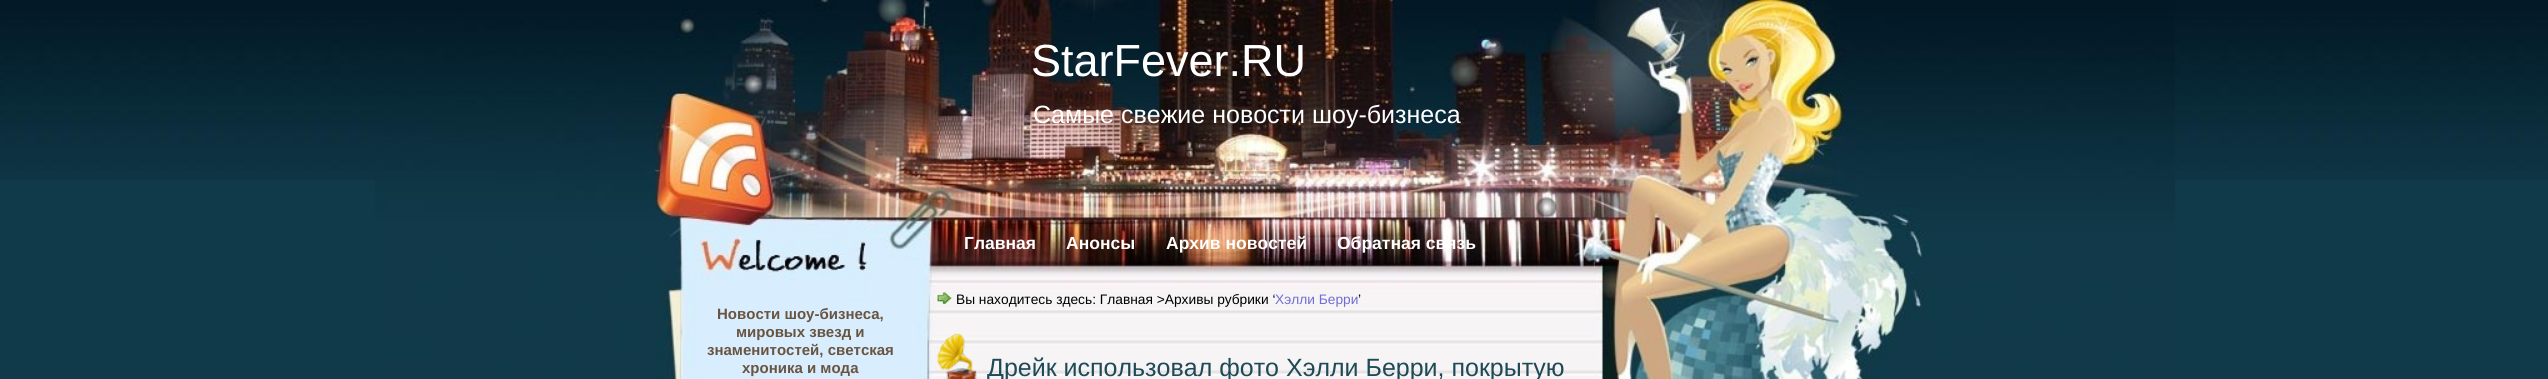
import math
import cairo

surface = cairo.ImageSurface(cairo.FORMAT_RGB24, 2548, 379)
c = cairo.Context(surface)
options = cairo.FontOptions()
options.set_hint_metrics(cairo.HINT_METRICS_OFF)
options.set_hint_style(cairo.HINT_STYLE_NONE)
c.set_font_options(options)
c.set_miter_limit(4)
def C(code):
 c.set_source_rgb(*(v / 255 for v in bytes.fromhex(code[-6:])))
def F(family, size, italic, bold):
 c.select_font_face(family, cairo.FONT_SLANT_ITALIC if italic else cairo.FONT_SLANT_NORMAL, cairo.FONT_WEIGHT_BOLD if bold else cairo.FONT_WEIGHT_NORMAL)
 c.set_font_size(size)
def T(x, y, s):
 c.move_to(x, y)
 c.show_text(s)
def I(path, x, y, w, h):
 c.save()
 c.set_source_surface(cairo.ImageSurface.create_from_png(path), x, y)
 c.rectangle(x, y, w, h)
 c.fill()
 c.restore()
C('103a49')
c.paint()
I('1.png',0,0,2548,180)
I('2.png',375,0,1800,379)
F('Liberation Sans',45,0,0)
C('ffffff')
T(1031,76,'StarFever.RU')
F('Liberation Sans',25,0,0)
T(1033,123,'Самые свежие новости шоу-бизнеса')
F('Liberation Sans',17.5,0,1)
T(964,249,'Главная')
T(1066,249,'Анонсы')
T(1166,249,'Архив новостей')
T(1337,249,'Обратная связь')
F('Liberation Sans',15,0,1)
C('695440')
T(717,319,'Новости шоу-бизнеса,')
T(736,337,'мировых звезд и')
T(707,355,'знаменитостей, светская')
T(742,373,'хроника и мода')
I('3.png',937,292,15,12)
F('Liberation Sans',13.75,0,0)
C('000000')
T(956,304,'Вы находитесь здесь: Главная >Архивы рубрики ‘')
C('706ed6')
T(1275,304,'Хэлли Берри')
C('000000')
T(1358,304,'’')
I('4.png',937,333,42,46)
F('Liberation Sans',25,0,0)
C('1e4a58')
T(987,376,'Дрейк использовал фото Хэлли Берри, покрытую')
surface.write_to_png('o.png')
